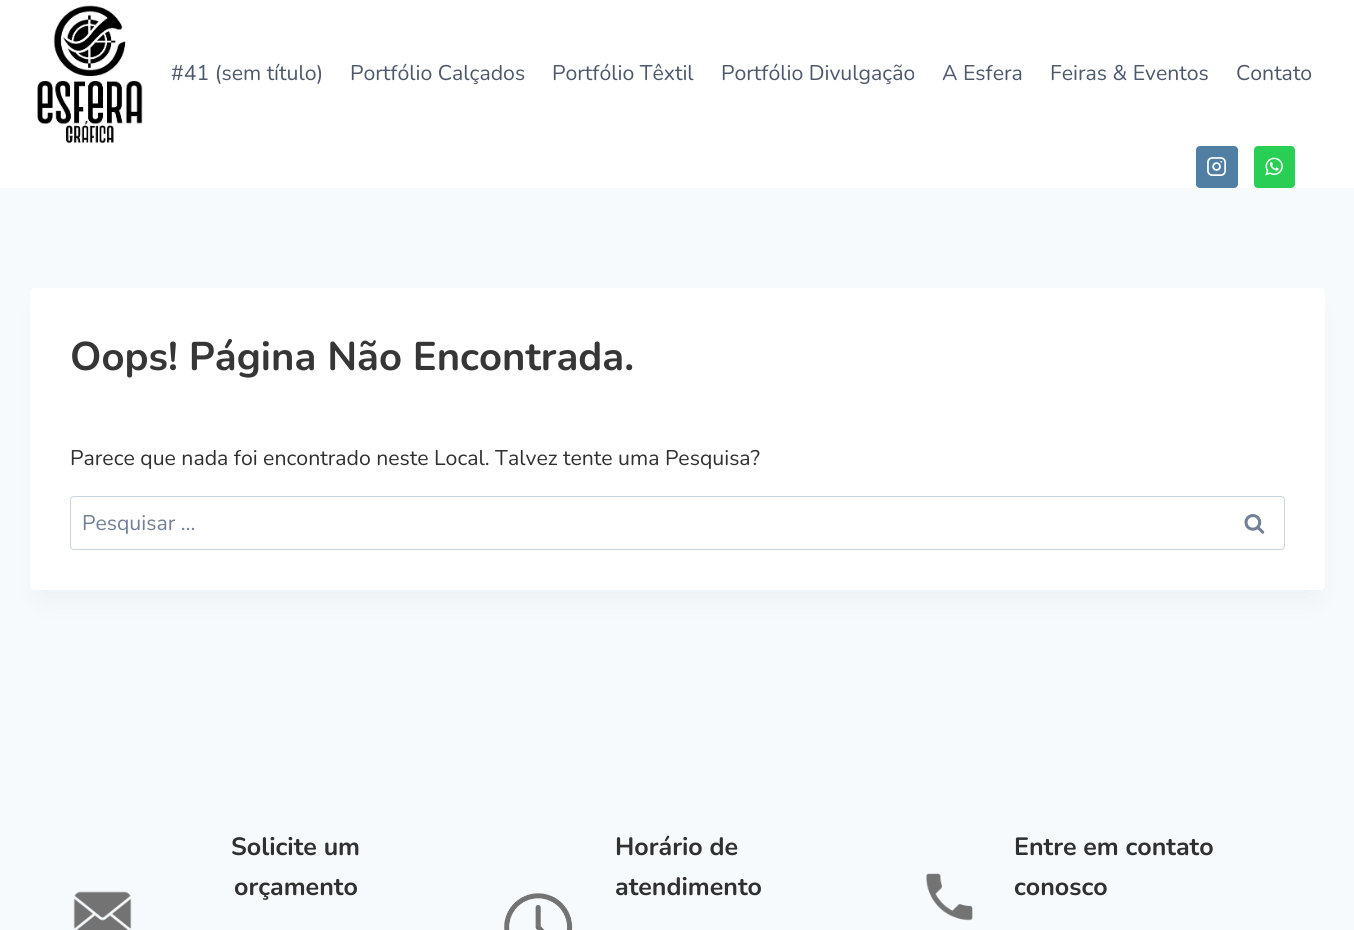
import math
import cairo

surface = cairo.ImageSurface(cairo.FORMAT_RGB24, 1354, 930)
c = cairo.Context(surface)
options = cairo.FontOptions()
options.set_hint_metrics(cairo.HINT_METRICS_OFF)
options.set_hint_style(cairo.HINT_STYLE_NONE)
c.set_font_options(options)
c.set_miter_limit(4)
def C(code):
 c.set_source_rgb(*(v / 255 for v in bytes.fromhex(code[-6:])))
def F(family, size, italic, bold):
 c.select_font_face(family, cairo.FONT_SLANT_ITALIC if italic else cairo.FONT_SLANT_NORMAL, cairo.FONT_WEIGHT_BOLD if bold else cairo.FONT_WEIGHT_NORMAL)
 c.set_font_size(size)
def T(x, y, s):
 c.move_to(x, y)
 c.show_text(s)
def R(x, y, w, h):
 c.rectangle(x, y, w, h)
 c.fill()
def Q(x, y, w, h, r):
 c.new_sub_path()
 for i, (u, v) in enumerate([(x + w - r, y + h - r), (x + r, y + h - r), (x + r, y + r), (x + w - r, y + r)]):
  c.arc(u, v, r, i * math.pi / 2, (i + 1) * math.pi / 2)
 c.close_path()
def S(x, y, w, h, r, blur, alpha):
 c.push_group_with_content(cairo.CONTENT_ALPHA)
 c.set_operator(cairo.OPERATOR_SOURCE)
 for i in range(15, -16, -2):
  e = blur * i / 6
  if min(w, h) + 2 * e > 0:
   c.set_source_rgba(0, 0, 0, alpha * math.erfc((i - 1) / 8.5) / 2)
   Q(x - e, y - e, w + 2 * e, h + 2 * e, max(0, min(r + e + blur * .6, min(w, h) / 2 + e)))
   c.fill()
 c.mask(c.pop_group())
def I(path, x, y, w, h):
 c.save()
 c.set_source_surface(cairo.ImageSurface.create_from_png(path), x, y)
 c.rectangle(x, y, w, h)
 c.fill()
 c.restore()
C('f7fafc')
c.paint()
C('ffffff')
R(0,0,1354,188)
I('1.png',37,5,106,138)
F('Nunito',21.25,0,0)
C('4e586b')
T(171,80,'#41 (sem título)')
T(350,80,'Portfólio Calçados')
T(552,80,'Portfólio Têxtil')
T(721,80,'Portfólio Divulgação')
T(942,80,'A Esfera')
T(1050,80,'Feiras & Eventos')
T(1236,80,'Contato')
C('517fa4')
Q(1196,146,42,42,4)
c.fill()
I('2.png',1207,157,19,19)
C('28cf54')
Q(1254,146,41,42,4)
c.fill()
I('3.png',1265,157,18,19)
C('000000')
S(43,319,1270,277,0,15.5,.05)
C('ffffff')
Q(30,288,1295,302,5)
c.fill()
F('Nunito',40,0,1)
C('363636')
T(70,370,'Oops! Página Não Encontrada.')
F('Nunito',21.25,0,0)
C('303030')
T(70,465,'Parece que nada foi encontrado neste Local. Talvez tente uma Pesquisa?')
Q(70.5,496.5,1214,53,3.5)
C('cbd5e0')
c.set_line_width(1)
c.stroke()
C('718096')
T(82,530,'Pesquisar …')
I('4.png',1244,514,21,20)
F('Nunito',25,0,1)
C('303030')
T(231,855,'Solicite um')
T(234,895,'orçamento')
I('5.png',73,891,59,39)
T(615,855,'Horário de')
T(615,895,'atendimento')
I('6.png',504,893,69,37)
I('7.png',926,873,47,48)
T(1014,855,'Entre em contato')
T(1014,895,'conosco')
surface.write_to_png('o.png')
